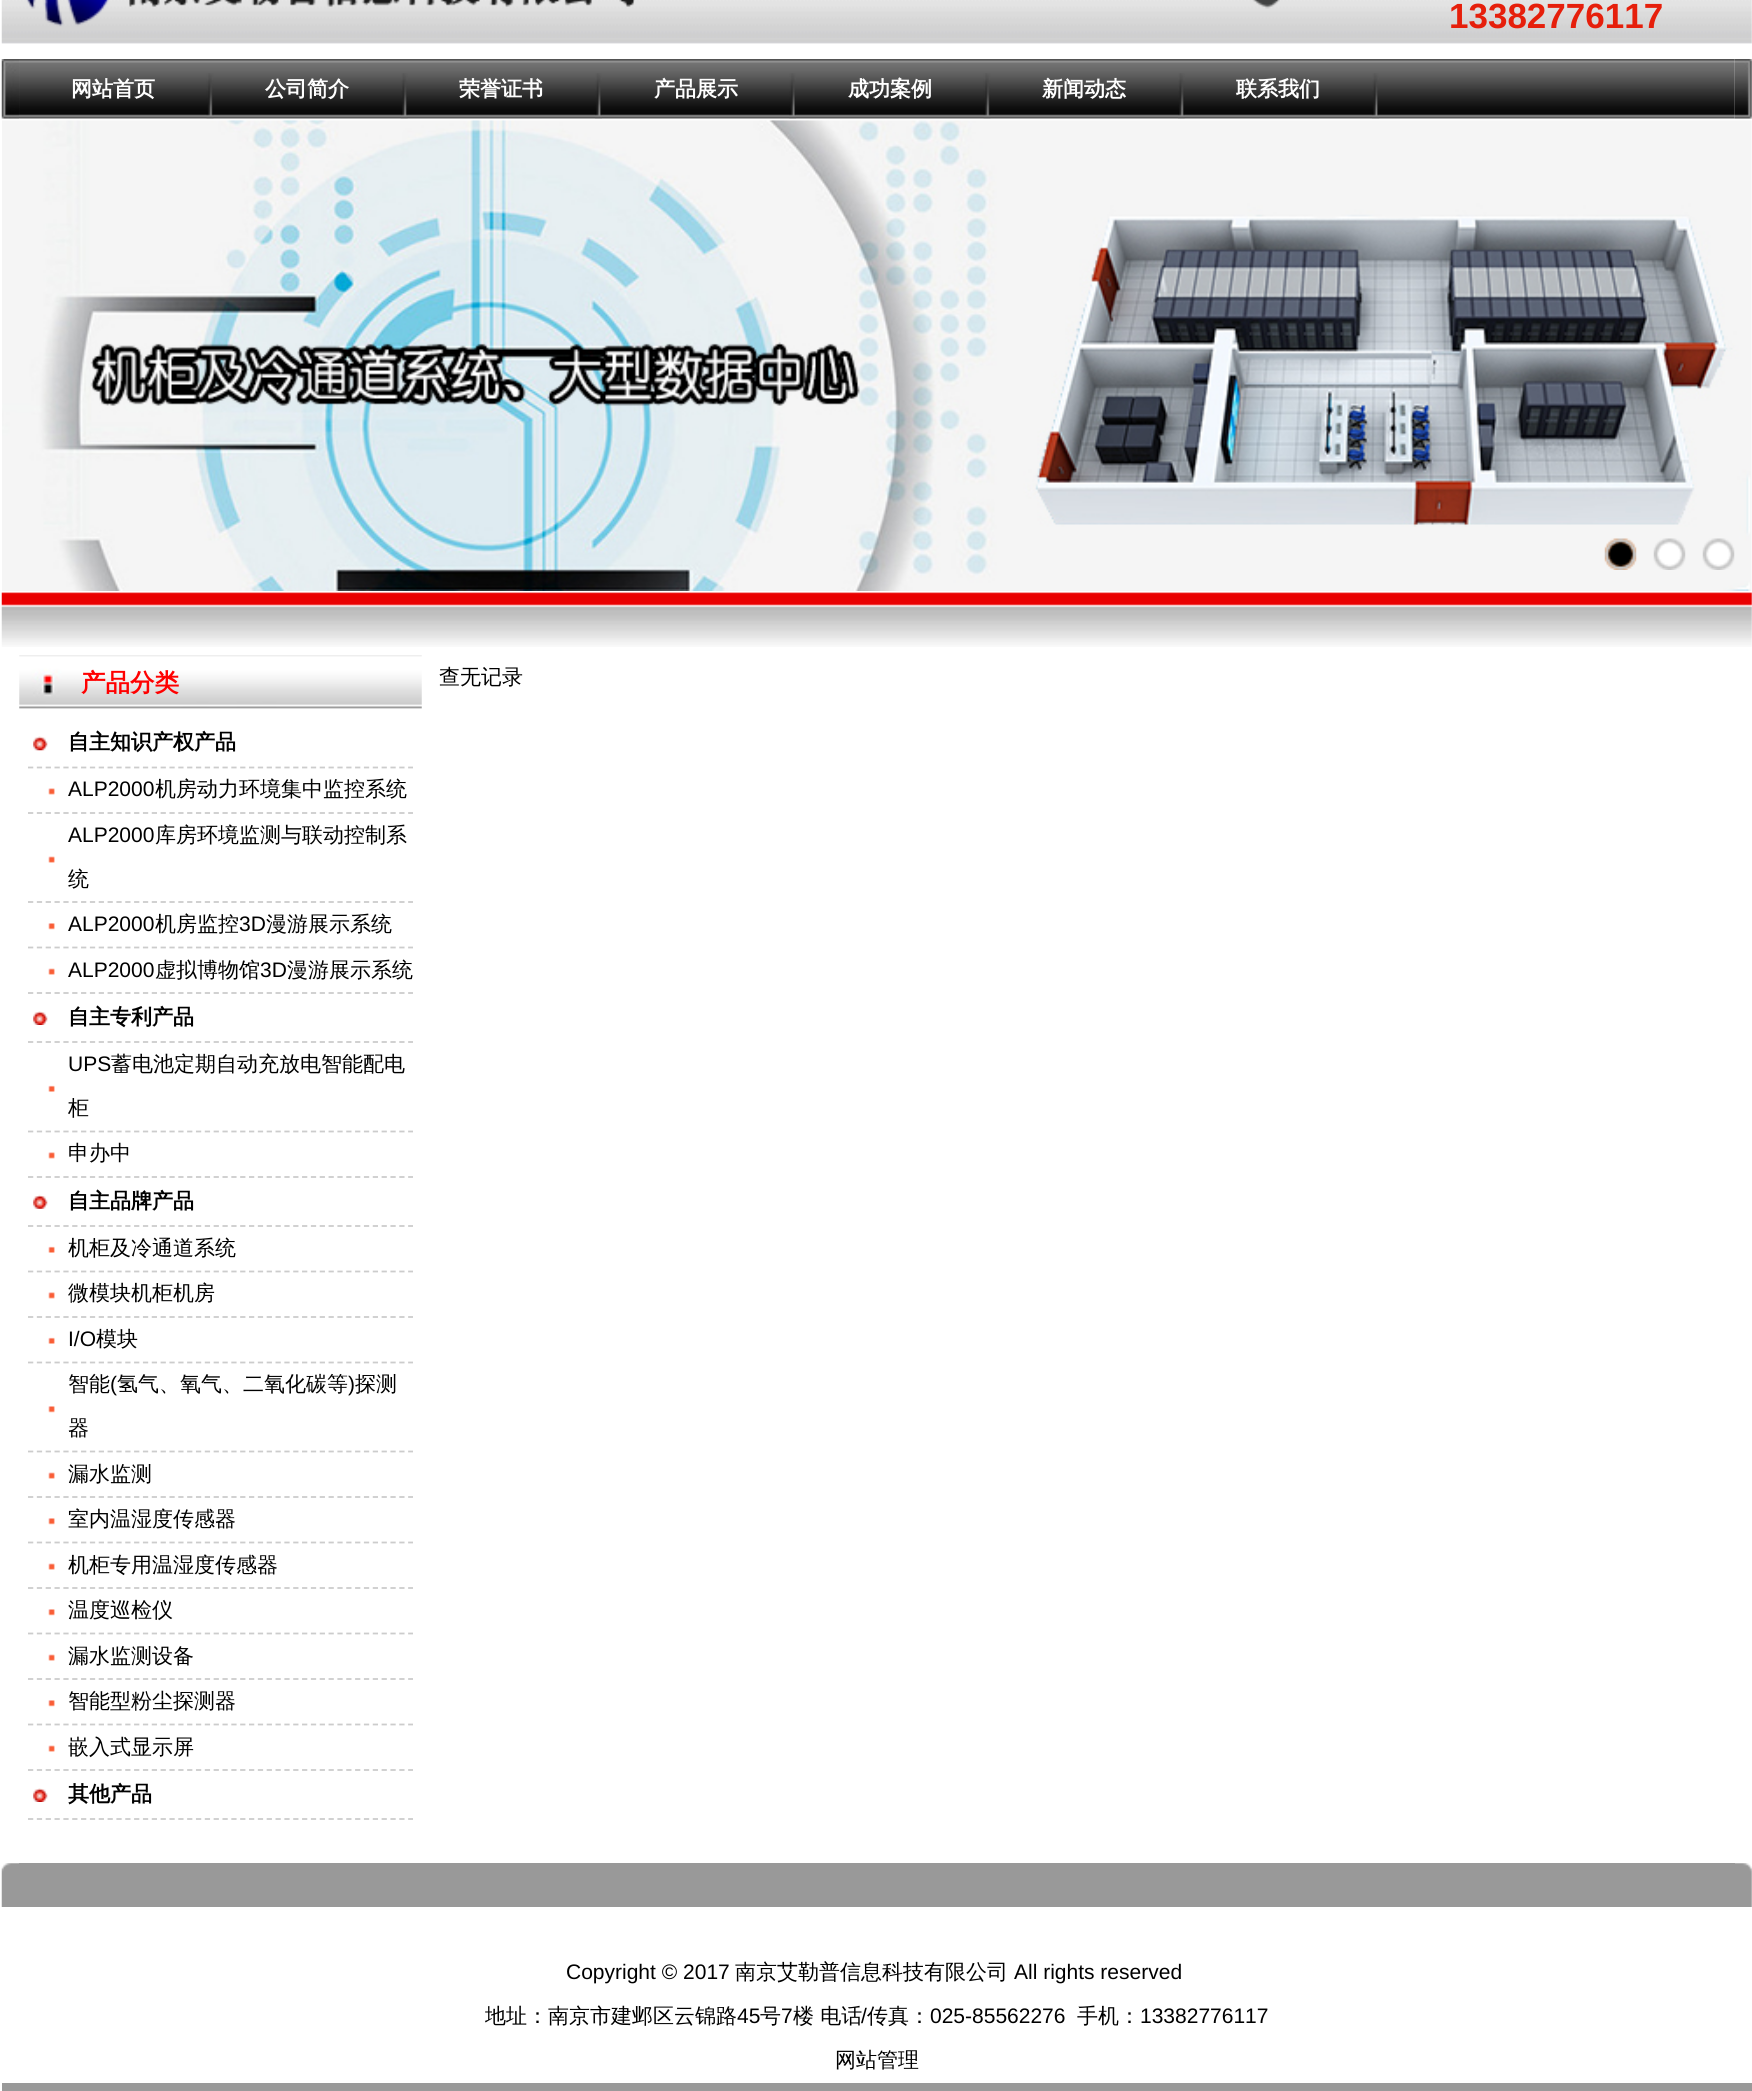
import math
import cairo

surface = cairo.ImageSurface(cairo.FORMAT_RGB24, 1752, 2091)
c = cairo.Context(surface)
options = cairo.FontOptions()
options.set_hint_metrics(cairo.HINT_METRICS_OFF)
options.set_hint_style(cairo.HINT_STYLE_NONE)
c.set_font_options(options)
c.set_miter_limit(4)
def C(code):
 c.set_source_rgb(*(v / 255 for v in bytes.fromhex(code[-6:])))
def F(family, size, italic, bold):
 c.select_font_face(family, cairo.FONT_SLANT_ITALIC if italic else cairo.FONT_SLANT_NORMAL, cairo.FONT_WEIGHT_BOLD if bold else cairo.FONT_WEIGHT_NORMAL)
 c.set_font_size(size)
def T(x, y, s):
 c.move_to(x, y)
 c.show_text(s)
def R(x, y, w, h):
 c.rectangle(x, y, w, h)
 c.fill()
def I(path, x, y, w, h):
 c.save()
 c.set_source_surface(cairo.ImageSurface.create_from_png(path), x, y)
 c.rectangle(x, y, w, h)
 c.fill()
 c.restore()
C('ffffff')
c.paint()
I('1.png',1,0,1751,44)
I('2.png',26,0,609,27)
I('3.png',1252,0,28,9)
F('Liberation Sans',35,0,1)
C('e61f0b')
T(1449,28,'13382776117')
I('4.png',1,59,19,60)
I('5.png',19,59,1716,60)
I('6.png',19,59,1,60)
I('7.png',19,59,1,59)
F('WenQuanYi Zen Hei',21,0,1)
C('ffffff')
T(71,96,'网站首页')
I('8.png',206,73,8,46)
T(265,96,'公司简介')
I('9.png',401,73,7,46)
T(459,96,'荣誉证书')
I('10.png',595,73,7,46)
T(654,96,'产品展示')
I('11.png',789,73,7,46)
T(848,96,'成功案例')
I('8.png',983,73,8,46)
T(1042,96,'新闻动态')
I('9.png',1178,73,7,46)
T(1236,96,'联系我们')
I('12.png',1372,73,7,46)
I('13.png',1734,59,18,60)
I('14.png',2,120,1750,471)
I('15.png',1,592,1751,55)
I('16.png',19,655,403,54)
F('WenQuanYi Zen Hei',24.5,0,1)
C('ff0000')
T(81,691,'产品分类')
I('17.png',33,736,15,15)
c.new_path()
c.move_to(28,767.5)
c.line_to(413,767.5)
C('cccccc')
c.set_line_width(1.8)
c.set_dash([5.25,3.59])
c.stroke()
F('WenQuanYi Zen Hei',21,0,1)
C('000000')
T(68,749,'自主知识产权产品')
I('18.png',48,788,7,7)
c.new_path()
c.move_to(28,813)
c.line_to(413,813)
C('cccccc')
c.stroke()
F('Liberation Sans',21,0,0)
C('000000')
T(68,796,'ALP2000')
F('WenQuanYi Zen Hei Medium',21,0,0)
T(155,796,'机房动力环境集中监控系统')
I('19.png',48,856,7,7)
c.new_path()
c.move_to(28,902)
c.line_to(413,902)
C('cccccc')
c.stroke()
F('Liberation Sans',21,0,0)
C('000000')
T(68,842,'ALP2000')
F('WenQuanYi Zen Hei Medium',21,0,0)
T(155,842,'库房环境监测与联动控制系')
T(68,886,'统')
I('20.png',48,923,7,7)
c.new_path()
c.move_to(28,947.5)
c.line_to(413,947.5)
C('cccccc')
c.stroke()
F('Liberation Sans',21,0,0)
C('000000')
T(68,931,'ALP2000')
F('WenQuanYi Zen Hei Medium',21,0,0)
T(155,931,'机房监控')
F('Liberation Sans',21,0,0)
T(239,931,'3D')
F('WenQuanYi Zen Hei Medium',21,0,0)
T(266,931,'漫游展示系统')
I('19.png',48,968,7,7)
c.new_path()
c.move_to(28,993)
c.line_to(413,993)
C('cccccc')
c.stroke()
F('Liberation Sans',21,0,0)
C('000000')
T(68,977,'ALP2000')
F('WenQuanYi Zen Hei Medium',21,0,0)
T(155,977,'虚拟博物馆')
F('Liberation Sans',21,0,0)
T(260,977,'3D')
F('WenQuanYi Zen Hei Medium',21,0,0)
T(287,977,'漫游展示系统')
I('21.png',33,1011,15,14)
c.new_path()
c.move_to(28,1042)
c.line_to(413,1042)
C('cccccc')
c.stroke()
F('WenQuanYi Zen Hei',21,0,1)
C('000000')
T(68,1024,'自主专利产品')
I('22.png',48,1085,7,7)
c.new_path()
c.move_to(28,1131.5)
c.line_to(413,1131.5)
C('cccccc')
c.stroke()
F('Liberation Sans',21,0,0)
C('000000')
T(68,1071,'UPS')
F('WenQuanYi Zen Hei Medium',21,0,0)
T(111,1071,'蓄电池定期自动充放电智能配电')
T(68,1115,'柜')
I('18.png',48,1152,7,7)
c.new_path()
c.move_to(28,1177)
c.line_to(413,1177)
C('cccccc')
c.stroke()
C('000000')
T(68,1160,'申办中')
I('23.png',33,1194,15,15)
c.new_path()
c.move_to(28,1226)
c.line_to(413,1226)
C('cccccc')
c.stroke()
F('WenQuanYi Zen Hei',21,0,1)
C('000000')
T(68,1208,'自主品牌产品')
I('22.png',48,1246,7,7)
c.new_path()
c.move_to(28,1271.5)
c.line_to(413,1271.5)
C('cccccc')
c.stroke()
F('WenQuanYi Zen Hei Medium',21,0,0)
C('000000')
T(68,1255,'机柜及冷通道系统')
I('18.png',48,1292,7,7)
c.new_path()
c.move_to(28,1317)
c.line_to(413,1317)
C('cccccc')
c.stroke()
C('000000')
T(68,1300,'微模块机柜机房')
I('22.png',48,1337,7,7)
c.new_path()
c.move_to(28,1362.5)
c.line_to(413,1362.5)
C('cccccc')
c.stroke()
F('Liberation Sans',21,0,0)
C('000000')
T(68,1346,'I/O')
F('WenQuanYi Zen Hei Medium',21,0,0)
T(96,1346,'模块')
I('20.png',48,1406,7,7)
c.new_path()
c.move_to(28,1451.5)
c.line_to(413,1451.5)
C('cccccc')
c.stroke()
C('000000')
T(68,1391,'智能')
F('Liberation Sans',21,0,0)
T(110,1391,'(')
F('WenQuanYi Zen Hei Medium',21,0,0)
T(117,1391,'氢气、氧气、二氧化碳等')
F('Liberation Sans',21,0,0)
T(348,1391,')')
F('WenQuanYi Zen Hei Medium',21,0,0)
T(355,1391,'探测')
T(68,1435,'器')
I('19.png',48,1472,7,7)
c.new_path()
c.move_to(28,1497)
c.line_to(413,1497)
C('cccccc')
c.stroke()
C('000000')
T(68,1481,'漏水监测')
I('20.png',48,1518,7,7)
c.new_path()
c.move_to(28,1542.5)
c.line_to(413,1542.5)
C('cccccc')
c.stroke()
C('000000')
T(68,1526,'室内温湿度传感器')
I('19.png',48,1563,7,7)
c.new_path()
c.move_to(28,1588)
c.line_to(413,1588)
C('cccccc')
c.stroke()
C('000000')
T(68,1572,'机柜专用温湿度传感器')
I('20.png',48,1609,7,7)
c.new_path()
c.move_to(28,1633.5)
c.line_to(413,1633.5)
C('cccccc')
c.stroke()
C('000000')
T(68,1617,'温度巡检仪')
I('19.png',48,1654,7,7)
c.new_path()
c.move_to(28,1679)
c.line_to(413,1679)
C('cccccc')
c.stroke()
C('000000')
T(68,1663,'漏水监测设备')
I('20.png',48,1700,7,7)
c.new_path()
c.move_to(28,1724.5)
c.line_to(413,1724.5)
C('cccccc')
c.stroke()
C('000000')
T(68,1708,'智能型粉尘探测器')
I('19.png',48,1745,7,7)
c.new_path()
c.move_to(28,1770)
c.line_to(413,1770)
C('cccccc')
c.stroke()
C('000000')
T(68,1754,'嵌入式显示屏')
I('21.png',33,1788,15,14)
c.new_path()
c.move_to(28,1819)
c.line_to(413,1819)
C('cccccc')
c.stroke()
F('WenQuanYi Zen Hei',21,0,1)
C('000000')
T(68,1801,'其他产品')
F('WenQuanYi Zen Hei Medium',21,0,0)
T(439,684,'查无记录')
I('24.png',1,1863,18,44)
C('999999')
R(19,1863,1716,44)
I('25.png',1735,1863,17,44)
F('Liberation Sans',21,0,0)
C('000000')
T(566,1979,'Copyright © 2017')
F('WenQuanYi Zen Hei Medium',21,0,0)
T(735,1979,'南京艾勒普信息科技有限公司')
F('Liberation Sans',21,0,0)
T(1014,1979,'All rights reserved')
F('WenQuanYi Zen Hei Medium',21,0,0)
T(485,2023,'地址：南京市建邺区云锦路')
F('Liberation Sans',21,0,0)
T(737,2023,'45')
F('WenQuanYi Zen Hei Medium',21,0,0)
T(760,2023,'号')
F('Liberation Sans',21,0,0)
T(781,2023,'7')
F('WenQuanYi Zen Hei Medium',21,0,0)
T(793,2023,'楼 电话')
F('Liberation Sans',21,0,0)
T(861,2023,'/')
F('WenQuanYi Zen Hei Medium',21,0,0)
T(867,2023,'传真：')
F('Liberation Sans',21,0,0)
T(930,2023,'025-85562276')
F('WenQuanYi Zen Hei Medium',21,0,0)
T(1077,2023,'手机：')
F('Liberation Sans',21,0,0)
T(1140,2023,'13382776117')
F('WenQuanYi Zen Hei Medium',21,0,0)
T(835,2067,'网站管理')
C('999999')
R(2,2083,1750,8)
surface.write_to_png('o.png')
